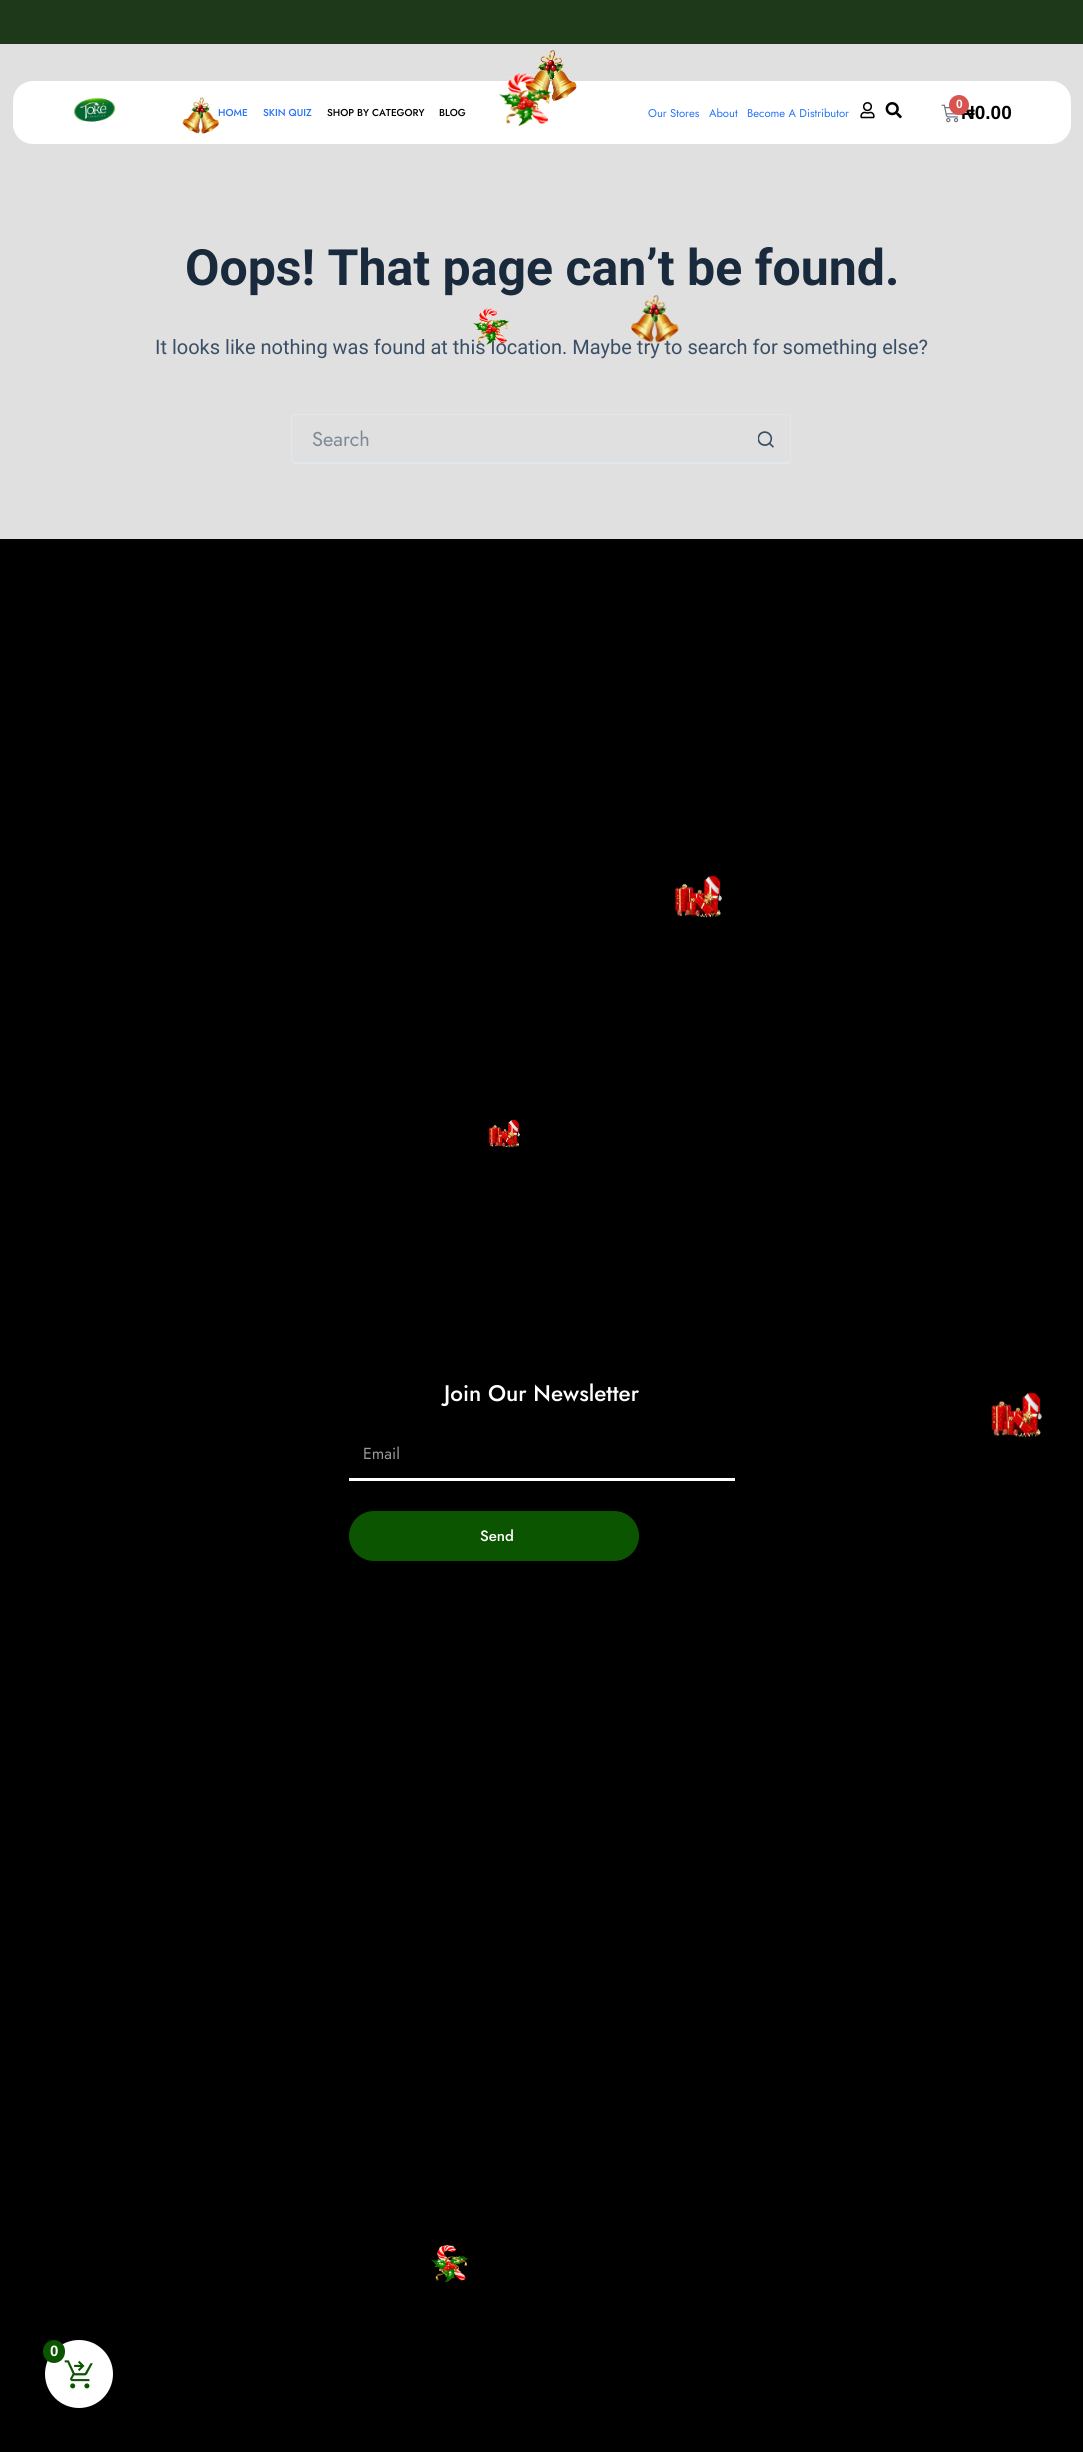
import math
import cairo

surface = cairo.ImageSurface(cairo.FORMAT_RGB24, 1083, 2452)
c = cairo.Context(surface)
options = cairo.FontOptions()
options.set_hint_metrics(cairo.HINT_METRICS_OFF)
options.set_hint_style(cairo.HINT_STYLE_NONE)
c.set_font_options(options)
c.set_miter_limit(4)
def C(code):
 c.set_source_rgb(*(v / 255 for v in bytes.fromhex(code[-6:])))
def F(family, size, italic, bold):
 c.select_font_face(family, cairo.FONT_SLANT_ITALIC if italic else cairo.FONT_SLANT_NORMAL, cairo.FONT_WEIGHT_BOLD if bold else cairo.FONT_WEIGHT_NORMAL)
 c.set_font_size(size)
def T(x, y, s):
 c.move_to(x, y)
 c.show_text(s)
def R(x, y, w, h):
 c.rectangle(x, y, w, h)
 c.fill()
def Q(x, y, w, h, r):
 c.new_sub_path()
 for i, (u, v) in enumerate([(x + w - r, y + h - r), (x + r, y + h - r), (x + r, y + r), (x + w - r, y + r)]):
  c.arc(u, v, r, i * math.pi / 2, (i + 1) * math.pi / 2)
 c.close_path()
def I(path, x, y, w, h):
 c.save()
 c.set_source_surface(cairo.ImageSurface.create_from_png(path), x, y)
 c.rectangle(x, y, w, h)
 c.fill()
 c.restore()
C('e1e0e0')
c.paint()
C('1e391a')
R(0,0,1083,44)
C('ffffff')
Q(13,81,1058,63,20)
c.fill()
I('1.png',525,50,52,52)
F('Jost Medium',10,0,0)
C('2872fa')
T(218,116,'HOME')
I('2.png',182,97,37,37)
I('3.png',499,73,53,54)
I('4.png',73,97,43,25)
T(263,116,'SKIN QUIZ')
C('000000')
T(327,116,'SHOP BY CATEGORY')
T(439,116,'BLOG')
F('Jost',11.25,0,0)
C('2872fa')
T(648,117,'Our Stores')
T(709,117,'About')
T(747,117,'Become A Distributor')
I('5.png',860,102,15,17)
I('6.png',885,102,17,17)
I('7.png',941,104,18,19)
F('Liberation Sans',19,0,1)
C('000000')
T(961,119,'₦0.00')
C('d9534f')
c.new_path()
c.arc(959,105,10,0,2 * math.pi)
c.fill()
F('Liberation Sans',12,0,1)
C('ffffff')
T(956,108,'0')
F('Roboto',50,0,1)
C('192a3d')
T(185,285,'Oops! That page can’t be found.')
F('Roboto',20,0,0)
C('3a4f66')
T(155,354,'It looks like nothing was found at this location. Maybe try to search for something else?')
C('e1e8ed')
c.set_fill_rule(cairo.FILL_RULE_EVEN_ODD)
c.new_path()
c.move_to(295,414)
c.line_to(741,414)
c.line_to(741,464)
c.line_to(295,464)
c.curve_to(293,464,291,462,291,460)
c.line_to(291,418)
c.curve_to(291,415,293,414,295,414)
c.close_path()
c.move_to(295,415)
c.line_to(741,415)
c.line_to(741,462)
c.line_to(295,462)
c.curve_to(294,462,292,461,292,460)
c.line_to(292,418)
c.curve_to(292,416,294,415,295,415)
c.close_path()
c.fill()
F('Jost',20,0,0)
C('7d8997')
T(312,446,'Search')
C('e1e8ed')
c.new_path()
c.move_to(741,414)
c.line_to(788,414)
c.curve_to(790,414,791,415,791,418)
c.line_to(791,460)
c.curve_to(791,462,790,464,788,464)
c.line_to(741,464)
c.close_path()
c.move_to(741,415)
c.line_to(788,415)
c.curve_to(789,415,790,416,790,418)
c.line_to(790,460)
c.curve_to(790,461,789,462,788,462)
c.line_to(741,462)
c.close_path()
c.fill()
I('8.png',758,431,16,17)
C('000000')
R(0,539,1083,1913)
F('Jost Medium',22.5,0,0)
C('ffffff')
T(444,1401,'Join Our Newsletter')
R(349,1478,386,3)
F('Jost',16,0,0)
C('999999')
T(363,1459,'Email')
C('0b5400')
Q(349,1511,290,50,25)
c.fill()
F('Jost Medium',15,0,0)
C('ffffff')
T(480,1541,'Send')
I('9.png',473,308,37,38)
I('10.png',631,295,48,48)
I('11.png',675,875,47,43)
I('12.png',489,1119,31,29)
I('13.png',991,1392,51,46)
I('14.png',431,2245,38,37)
c.arc(79,2374,34,0,2 * math.pi)
c.fill()
I('15.png',64,2360,29,29)
C('0b5400')
Q(43,2340,22,23,11)
c.fill()
F('Liberation Sans',15,0,1)
C('ffffff')
T(50,2356,'0')
surface.write_to_png('o.png')
